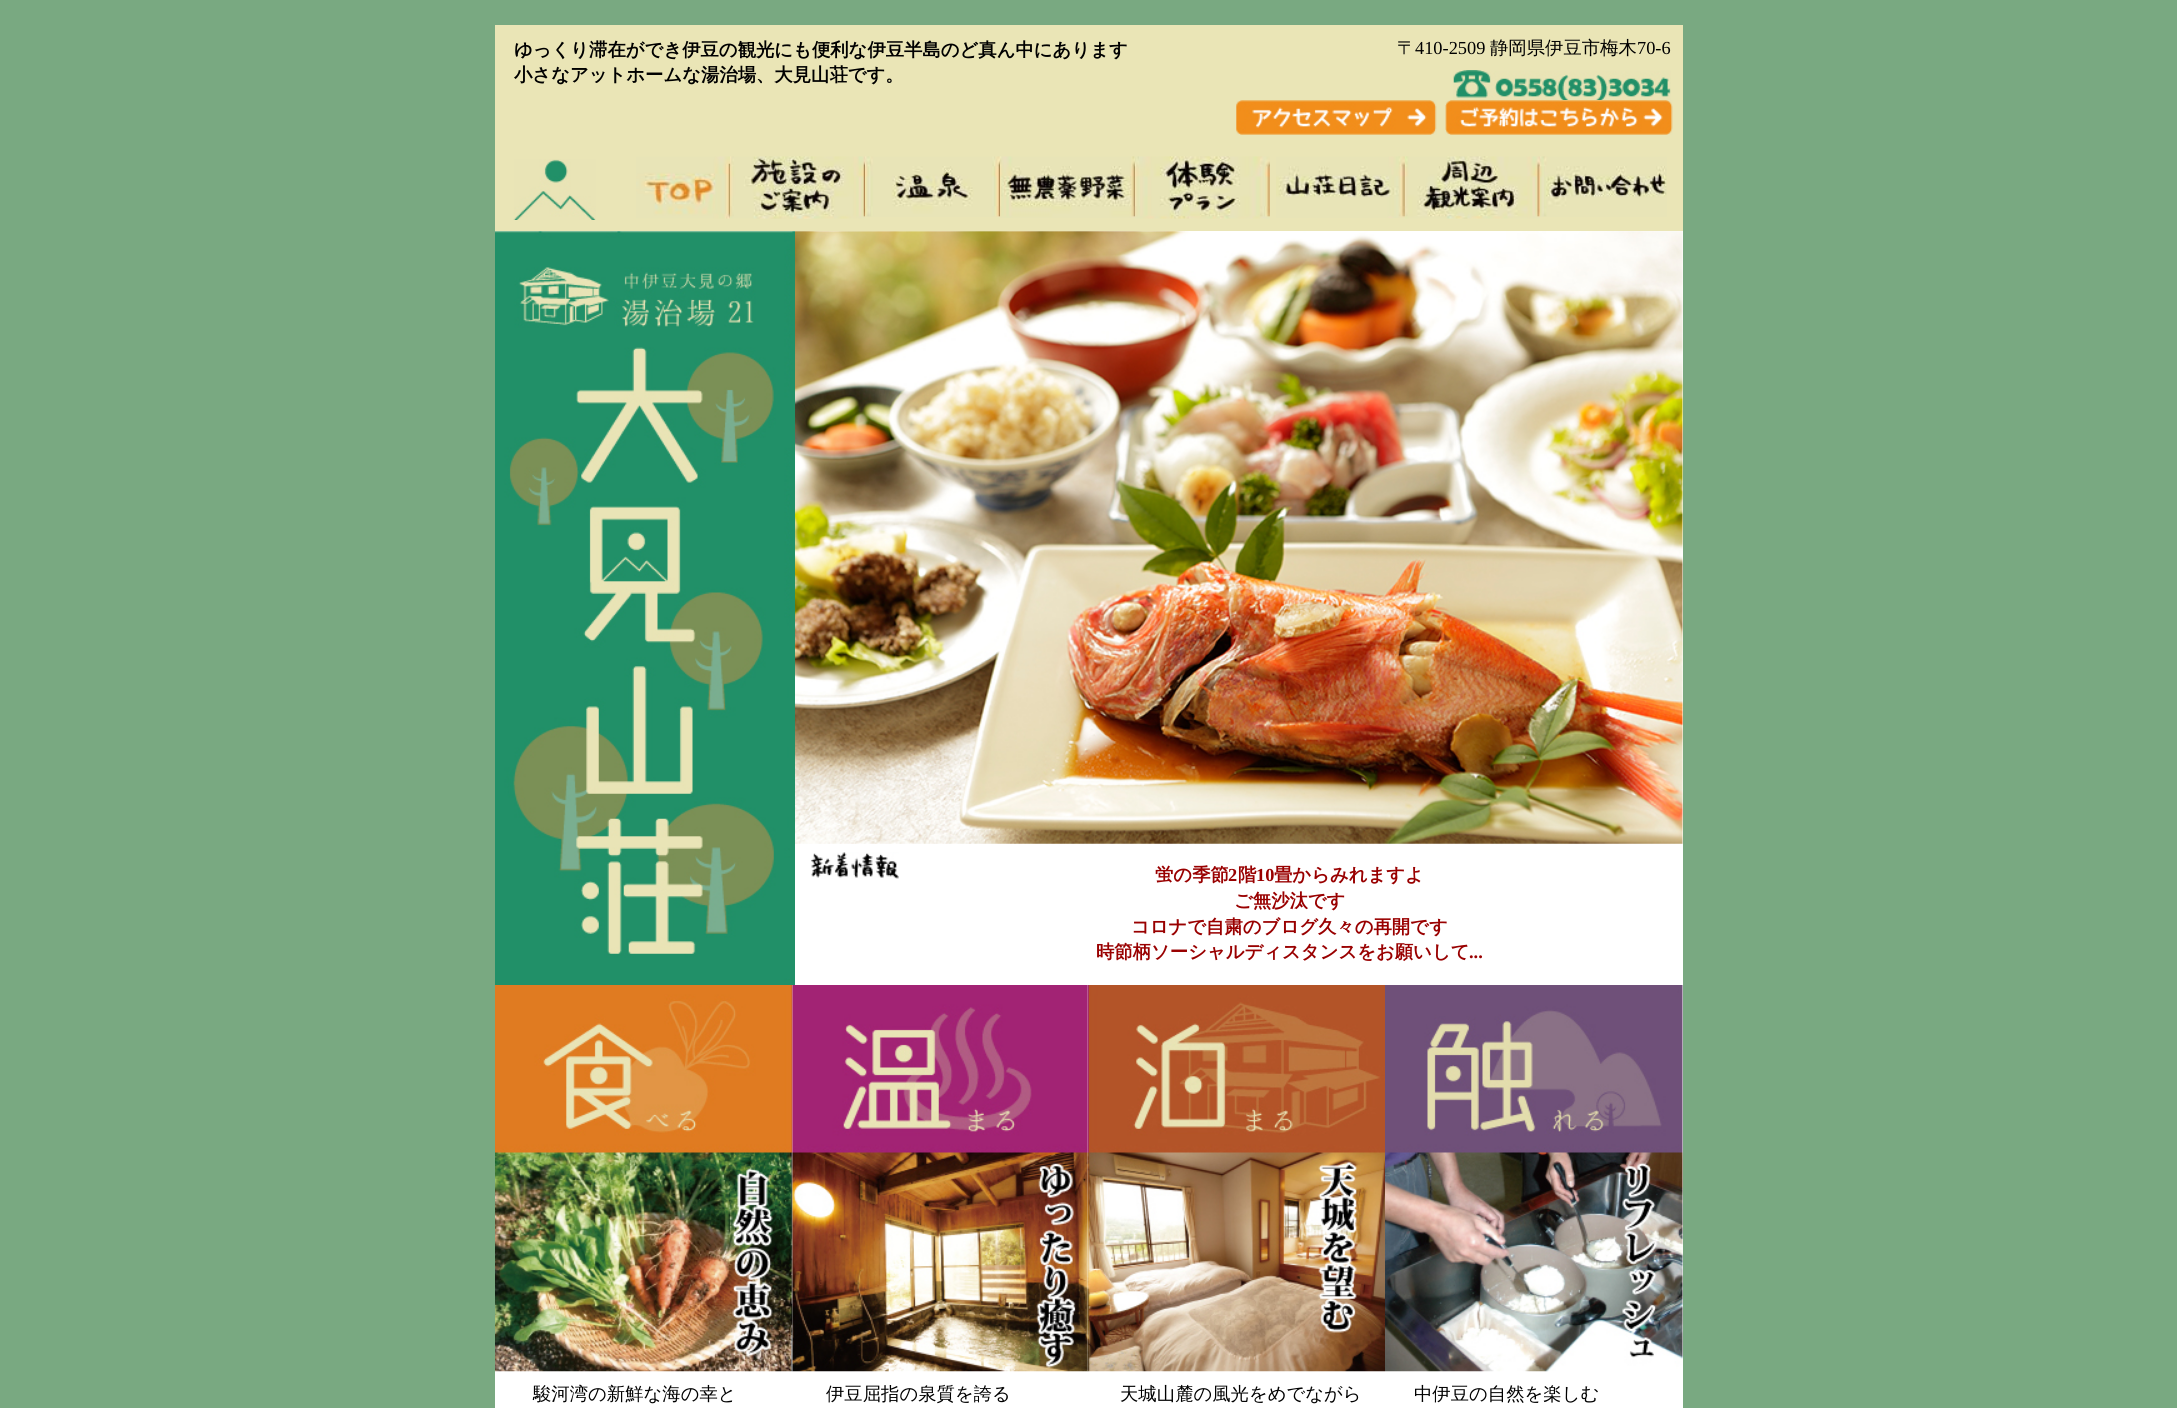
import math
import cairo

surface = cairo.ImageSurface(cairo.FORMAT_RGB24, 2177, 1408)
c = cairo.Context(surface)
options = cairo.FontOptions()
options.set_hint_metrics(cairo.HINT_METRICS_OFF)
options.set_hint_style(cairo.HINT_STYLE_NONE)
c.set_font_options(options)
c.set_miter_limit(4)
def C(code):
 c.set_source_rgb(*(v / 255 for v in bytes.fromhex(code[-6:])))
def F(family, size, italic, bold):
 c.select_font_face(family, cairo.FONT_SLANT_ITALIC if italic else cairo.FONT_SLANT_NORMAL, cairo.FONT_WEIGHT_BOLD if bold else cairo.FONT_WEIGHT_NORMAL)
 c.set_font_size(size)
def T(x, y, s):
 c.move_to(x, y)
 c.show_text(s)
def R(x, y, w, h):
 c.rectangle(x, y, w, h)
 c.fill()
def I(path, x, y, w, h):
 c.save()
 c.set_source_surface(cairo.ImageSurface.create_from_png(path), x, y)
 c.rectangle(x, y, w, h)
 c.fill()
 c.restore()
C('79a981')
c.paint()
C('ffffff')
R(495,231,1188,1177)
C('eae5b6')
R(495,25,1188,206)
F('WenQuanYi Zen Hei',18.35,0,1)
C('000000')
T(514,56,'ゆっくり滞在ができ伊豆の観光にも便利な伊豆半島のど真ん中にあります')
T(514,81,'小さなアットホームな湯治場、大見山荘です。')
I('1.png',1453,70,218,30)
F('WenQuanYi Zen Hei Medium',18.35,0,0)
T(1397,54,'〒')
F('Liberation Serif',18.35,0,0)
T(1415,54,'410-2509')
F('WenQuanYi Zen Hei Medium',18.35,0,0)
T(1490,54,'静岡県伊豆市梅木')
F('Liberation Serif',18.35,0,0)
T(1637,54,'70-6')
I('2.png',1236,100,201,35)
I('3.png',1445,100,228,35)
I('4.png',513,159,83,61)
I('5.png',636,156,94,63)
I('6.png',730,156,135,63)
I('7.png',865,156,135,61)
I('8.png',1000,156,135,62)
I('9.png',1135,156,135,63)
I('10.png',1276,156,129,62)
I('11.png',1405,156,135,63)
I('12.png',1540,156,127,61)
I('13.png',495,231,300,754)
I('14.png',795,231,888,613)
I('15.png',811,852,88,27)
F('WenQuanYi Zen Hei',18.35,0,1)
C('990000')
T(1155,881,'蛍の季節')
F('Liberation Serif',18.35,0,1)
T(1228,881,'2')
F('WenQuanYi Zen Hei',18.35,0,1)
T(1238,881,'階')
F('Liberation Serif',18.35,0,1)
T(1256,881,'10')
F('WenQuanYi Zen Hei',18.35,0,1)
T(1274,881,'畳からみれますよ')
T(1234,907,'ご無沙汰です')
T(1131,933,'コロナで自粛のブログ久々の再開です')
T(1096,958,'時節柄ソーシャルディスタンスをお願いして')
F('Liberation Serif',18.35,0,1)
T(1469,958,'...')
I('16.png',495,985,298,387)
I('17.png',792,985,296,387)
I('18.png',1087,985,298,387)
I('19.png',1385,985,298,387)
F('WenQuanYi Zen Hei Medium',18.35,0,0)
C('000000')
T(533,1400,'駿河湾の新鮮な海の幸と')
T(826,1400,'伊豆屈指の泉質を誇る')
T(1120,1400,'天城山麓の風光をめでながら')
T(1414,1400,'中伊豆の自然を楽しむ')
surface.write_to_png('o.png')
